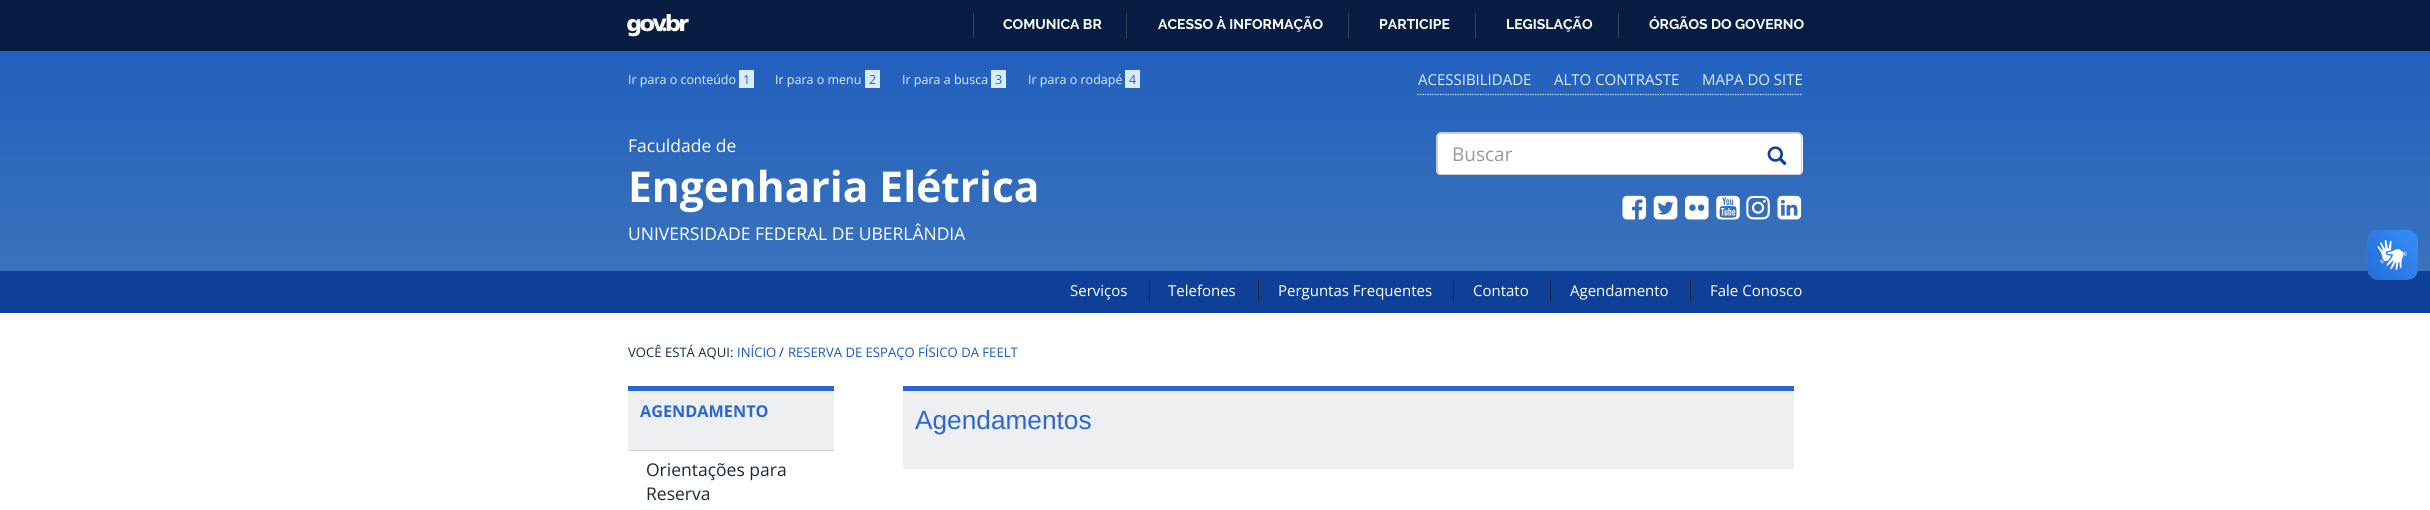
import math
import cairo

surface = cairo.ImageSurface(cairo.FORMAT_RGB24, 2430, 510)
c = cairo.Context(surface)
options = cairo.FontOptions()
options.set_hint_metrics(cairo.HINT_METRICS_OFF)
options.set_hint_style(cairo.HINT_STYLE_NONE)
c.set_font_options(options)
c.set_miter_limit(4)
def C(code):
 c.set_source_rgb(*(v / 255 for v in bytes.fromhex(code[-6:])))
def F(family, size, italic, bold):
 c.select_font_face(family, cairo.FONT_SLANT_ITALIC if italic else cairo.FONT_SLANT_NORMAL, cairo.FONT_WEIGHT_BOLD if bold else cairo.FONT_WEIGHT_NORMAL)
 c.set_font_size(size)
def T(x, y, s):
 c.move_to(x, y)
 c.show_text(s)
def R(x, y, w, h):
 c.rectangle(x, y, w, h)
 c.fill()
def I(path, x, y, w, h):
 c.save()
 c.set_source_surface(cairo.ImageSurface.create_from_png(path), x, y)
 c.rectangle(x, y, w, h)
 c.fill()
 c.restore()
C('ffffff')
c.paint()
C('071d41')
R(0,0,2430,51)
I('1.png',627,14,62,23)
C('32425b')
R(973,13,1,25)
F('Raleway',14,0,1)
C('ffffff')
T(1003,29,'COMUNICA BR')
C('32425b')
R(1126,13,1,25)
C('ffffff')
T(1158,29,'ACESSO À INFORMAÇÃO')
C('32425b')
R(1348,13,1,25)
C('ffffff')
T(1379,29,'PARTICIPE')
C('32425b')
R(1475,13,1,25)
C('ffffff')
T(1506,29,'LEGISLAÇÃO')
C('32425b')
R(1618,13,1,25)
C('ffffff')
T(1649,29,'ÓRGÃOS DO GOVERNO')
gradient = cairo.LinearGradient(1215,51,1215,271)
gradient.add_color_stop_rgba(0,0.129,0.376,0.741,1)
gradient.add_color_stop_rgba(1,0.227,0.447,0.737,1)
c.set_source(gradient)
R(0,51,2430,220)
F('Open Sans',12.5,0,0)
C('dcecff')
T(628,84,'Ir para o conteúdo')
R(739,70,15,18)
C('2160bd')
T(743,84,'1')
C('dcecff')
T(775,84,'Ir para o menu')
R(865,70,15,18)
C('2160bd')
T(869,84,'2')
C('dcecff')
T(902,84,'Ir para a busca')
R(991,70,15,18)
C('2160bd')
T(995,84,'3')
C('dcecff')
T(1028,84,'Ir para o rodapé')
R(1125,70,15,18)
C('2160bd')
T(1129,84,'4')
c.new_path()
c.move_to(1417.5,94.5)
c.line_to(1802.5,94.5)
C('dcecff')
c.set_line_width(1.2)
c.set_dash([1.25,1.25])
c.stroke()
F('Open Sans',15,0,0)
T(1418,85,'ACESSIBILIDADE')
T(1554,85,'ALTO CONTRASTE')
T(1702,85,'MAPA DO SITE')
F('Open Sans',17.5,0,0)
C('ffffff')
T(628,152,'Faculdade de')
F('Open Sans',42.5,0,1)
T(628,202,'Engenharia Elétrica')
F('Open Sans',17.5,0,0)
T(628,240,'UNIVERSIDADE FEDERAL DE UBERLÂNDIA')
c.new_path()
c.move_to(1753,133)
c.line_to(1798,133)
c.curve_to(1801,133,1803,135,1803,138)
c.line_to(1803,170)
c.curve_to(1803,173,1801,175,1798,175)
c.line_to(1753,175)
c.close_path()
c.fill()
C('cccccc')
c.set_fill_rule(cairo.FILL_RULE_EVEN_ODD)
c.new_path()
c.move_to(1752,132)
c.line_to(1798,132)
c.curve_to(1800,132,1802,135,1802,138)
c.line_to(1802,170)
c.curve_to(1802,173,1800,175,1798,175)
c.line_to(1752,175)
c.close_path()
c.move_to(1752,134)
c.line_to(1798,134)
c.curve_to(1800,134,1801,135,1801,138)
c.line_to(1801,170)
c.curve_to(1801,172,1800,174,1798,174)
c.line_to(1752,174)
c.close_path()
c.fill()
C('ffffff')
c.new_path()
c.move_to(1441,133)
c.line_to(1754,133)
c.line_to(1754,175)
c.line_to(1441,175)
c.curve_to(1438,175,1436,173,1436,170)
c.line_to(1436,138)
c.curve_to(1436,135,1438,133,1441,133)
c.close_path()
c.fill()
C('cccccc')
c.new_path()
c.move_to(1441,132)
c.line_to(1754,132)
c.line_to(1754,175)
c.line_to(1441,175)
c.curve_to(1438,175,1436,173,1436,170)
c.line_to(1436,138)
c.curve_to(1436,135,1438,132,1441,132)
c.close_path()
c.move_to(1441,134)
c.line_to(1754,134)
c.line_to(1754,174)
c.line_to(1441,174)
c.curve_to(1439,174,1438,172,1438,170)
c.line_to(1438,138)
c.curve_to(1438,135,1439,134,1441,134)
c.close_path()
c.fill()
F('Open Sans',19,0,0)
C('999999')
T(1452,161,'Buscar')
I('2.png',1767,146,20,20)
I('3.png',1622,195,25,25)
I('4.png',1653,195,25,25)
I('5.png',1685,195,24,25)
I('6.png',1716,195,24,25)
I('7.png',1746,195,24,25)
I('8.png',1777,195,25,25)
C('0e4097')
R(0,271,2430,42)
I('9.png',2367,230,51,50)
I('10.png',2368,230,50,50)
F('Open Sans',15,0,0)
C('ffffff')
T(1070,296,'Serviços')
T(1168,296,'Telefones')
C('172938')
R(1149,280,1,21)
C('ffffff')
T(1278,296,'Perguntas Frequentes')
C('172938')
R(1258,280,1,21)
C('ffffff')
T(1473,296,'Contato')
C('172938')
R(1453,280,1,21)
C('ffffff')
T(1570,296,'Agendamento')
C('172938')
R(1550,280,1,21)
C('ffffff')
T(1710,296,'Fale Conosco')
C('172938')
R(1690,280,1,21)
F('Open Sans',13.1,0,0)
T(628,357,'VOCÊ ESTÁ AQUI:')
C('165abf')
T(737,357,'INÍCIO')
C('172938')
T(779,357,'/')
C('165abf')
T(788,357,'RESERVA DE ESPAÇO FÍSICO DA FEELT')
C('edeff1')
R(628,391,206,59)
C('2c66ce')
R(628,386,206,5)
F('Open Sans',16.25,0,1)
T(640,417,'AGENDAMENTO')
C('d0d4d5')
R(628,450,206,1)
F('Open Sans',17.5,0,0)
C('172938')
T(646,476,'Orientações para')
T(646,500,'Reserva')
C('edeff1')
R(903,391,891,78)
C('2c66ce')
R(903,386,891,5)
F('Liberation Sans',26.25,0,0)
T(915,429,'Agendamentos')
surface.write_to_png('o.png')
